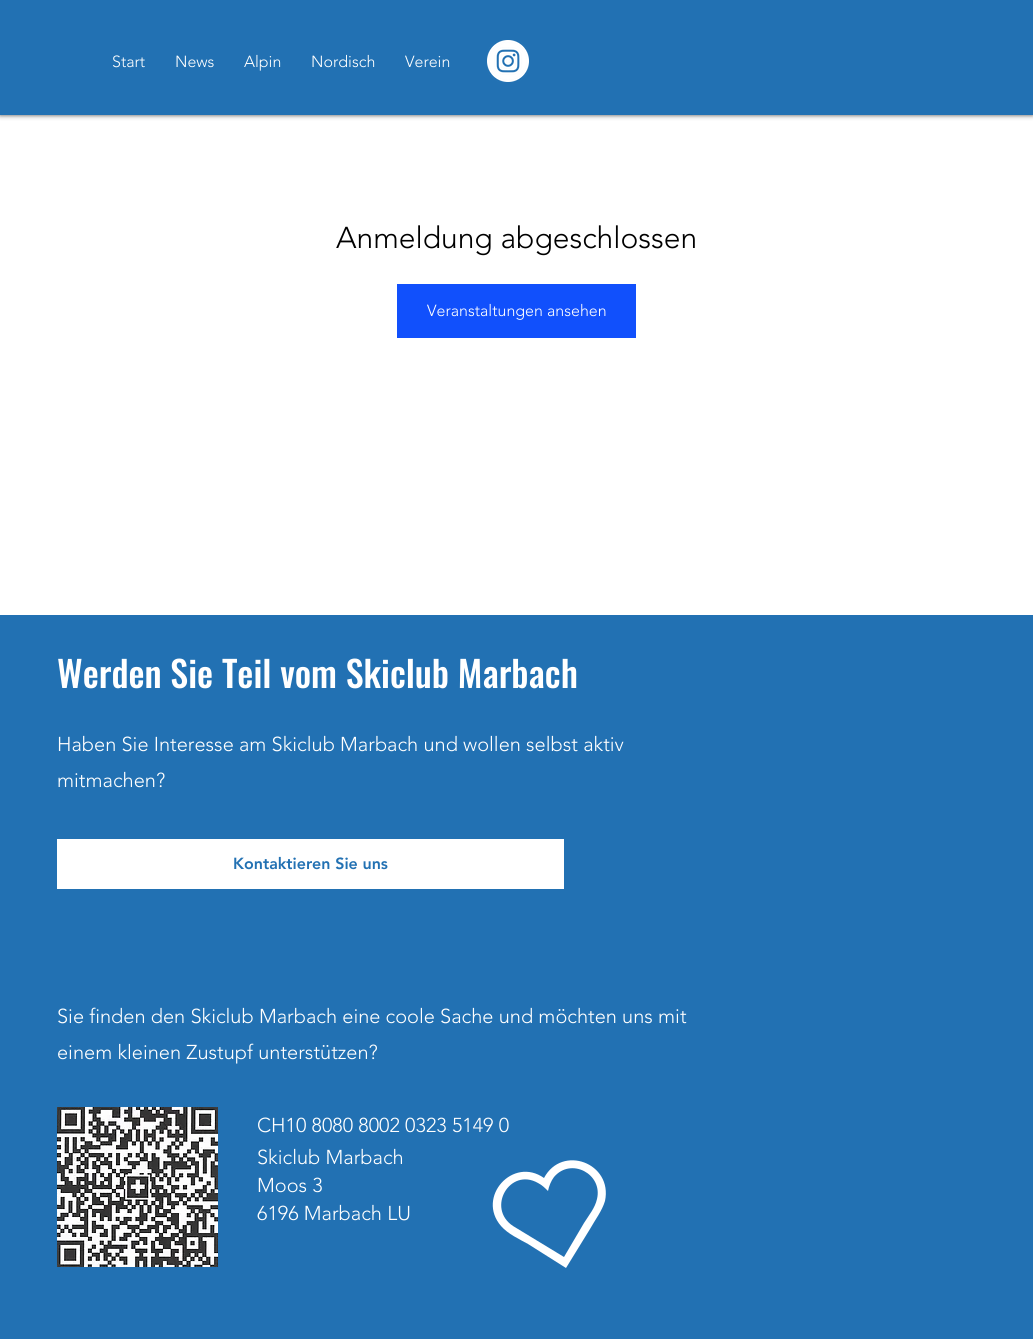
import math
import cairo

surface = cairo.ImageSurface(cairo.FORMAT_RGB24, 1033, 1339)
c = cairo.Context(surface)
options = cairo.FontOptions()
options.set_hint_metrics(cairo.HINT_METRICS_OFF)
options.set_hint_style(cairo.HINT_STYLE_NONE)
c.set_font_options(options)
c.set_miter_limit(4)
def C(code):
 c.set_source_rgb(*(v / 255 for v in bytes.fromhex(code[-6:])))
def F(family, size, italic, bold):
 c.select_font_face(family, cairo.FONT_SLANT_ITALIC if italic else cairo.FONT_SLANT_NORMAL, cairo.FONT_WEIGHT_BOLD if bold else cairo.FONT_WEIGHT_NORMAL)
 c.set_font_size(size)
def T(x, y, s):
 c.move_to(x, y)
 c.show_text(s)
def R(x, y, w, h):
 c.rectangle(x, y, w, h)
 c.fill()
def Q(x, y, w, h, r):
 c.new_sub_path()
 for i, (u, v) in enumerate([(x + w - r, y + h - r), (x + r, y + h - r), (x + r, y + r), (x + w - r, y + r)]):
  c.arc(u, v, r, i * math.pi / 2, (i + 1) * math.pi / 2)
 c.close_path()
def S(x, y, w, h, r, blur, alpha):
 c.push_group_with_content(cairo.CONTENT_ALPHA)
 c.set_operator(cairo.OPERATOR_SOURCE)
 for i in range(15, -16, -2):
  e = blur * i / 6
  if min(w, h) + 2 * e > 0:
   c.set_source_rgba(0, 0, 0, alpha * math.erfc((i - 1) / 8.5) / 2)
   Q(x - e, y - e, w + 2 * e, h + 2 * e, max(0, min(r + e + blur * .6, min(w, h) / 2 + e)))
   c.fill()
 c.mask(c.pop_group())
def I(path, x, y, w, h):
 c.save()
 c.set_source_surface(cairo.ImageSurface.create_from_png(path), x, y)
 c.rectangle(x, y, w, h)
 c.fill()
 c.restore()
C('ffffff')
c.paint()
C('000000')
S(0,0,1033,115,0,2.5,.7)
C('2271b3')
R(0,0,1033,115)
F('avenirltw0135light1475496 Light',16,0,0)
C('ffffff')
T(112,67,'Start')
T(175,67,'News')
T(244,67,'Alpin')
T(311,67,'Nordisch')
T(405,67,'Verein')
I('1.png',487,40,42,42)
F('avenirltw0135light1475496 Light',30,0,0)
C('000000')
T(336,248,'Anmeldung abgeschlossen')
C('1150fc')
R(397,284,239,54)
F('avenirltw0135light1475496 Light',16,0,0)
C('ffffff')
T(427,316,'Veranstaltungen ansehen')
C('2271b3')
R(0,615,1033,724)
F('Oswald Medium',36,0,0)
C('ffffff')
T(57,688,'Werden Sie Teil vom Skiclub Marbach')
F('avenirltw0135light1475496 Light',20,0,0)
T(57,751,'Haben Sie Interesse am Skiclub Marbach und wollen selbst aktiv')
T(57,787,'mitmachen?')
R(57,839,507,50)
F('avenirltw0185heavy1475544 Black',16,0,0)
C('2271b3')
T(233,869,'Kontaktieren Sie uns')
F('avenirltw0135light1475496 Light',20,0,0)
C('ffffff')
T(57,1023,'Sie finden den Skiclub Marbach eine coole Sache und möchten uns mit')
T(57,1059,'einem kleinen Zustupf unterstützen?')
I('2.png',57,1107,161,160)
T(257,1132,'CH10 8080 8002 0323 5149 0')
T(257,1164,'Skiclub Marbach')
T(257,1192,'Moos 3')
T(257,1220,'6196 Marbach LU')
c.new_path()
c.move_to(566,1268)
c.line_to(528,1244)
c.curve_to(519,1239,508,1234,501,1226)
c.curve_to(476,1197,513,1156,544,1178)
c.curve_to(562,1144,613,1163,605,1201)
c.curve_to(602,1211,595,1220,590,1229)
c.close_path()
c.move_to(513,1226)
c.line_to(564,1257)
c.line_to(584,1223)
c.curve_to(589,1215,595,1208,597,1199)
c.curve_to(603,1174,571,1157,554,1177)
c.curve_to(551,1181,549,1186,548,1191)
c.curve_to(545,1188,542,1185,538,1183)
c.curve_to(510,1167,486,1208,513,1226)
c.close_path()
c.fill()
surface.write_to_png('o.png')
